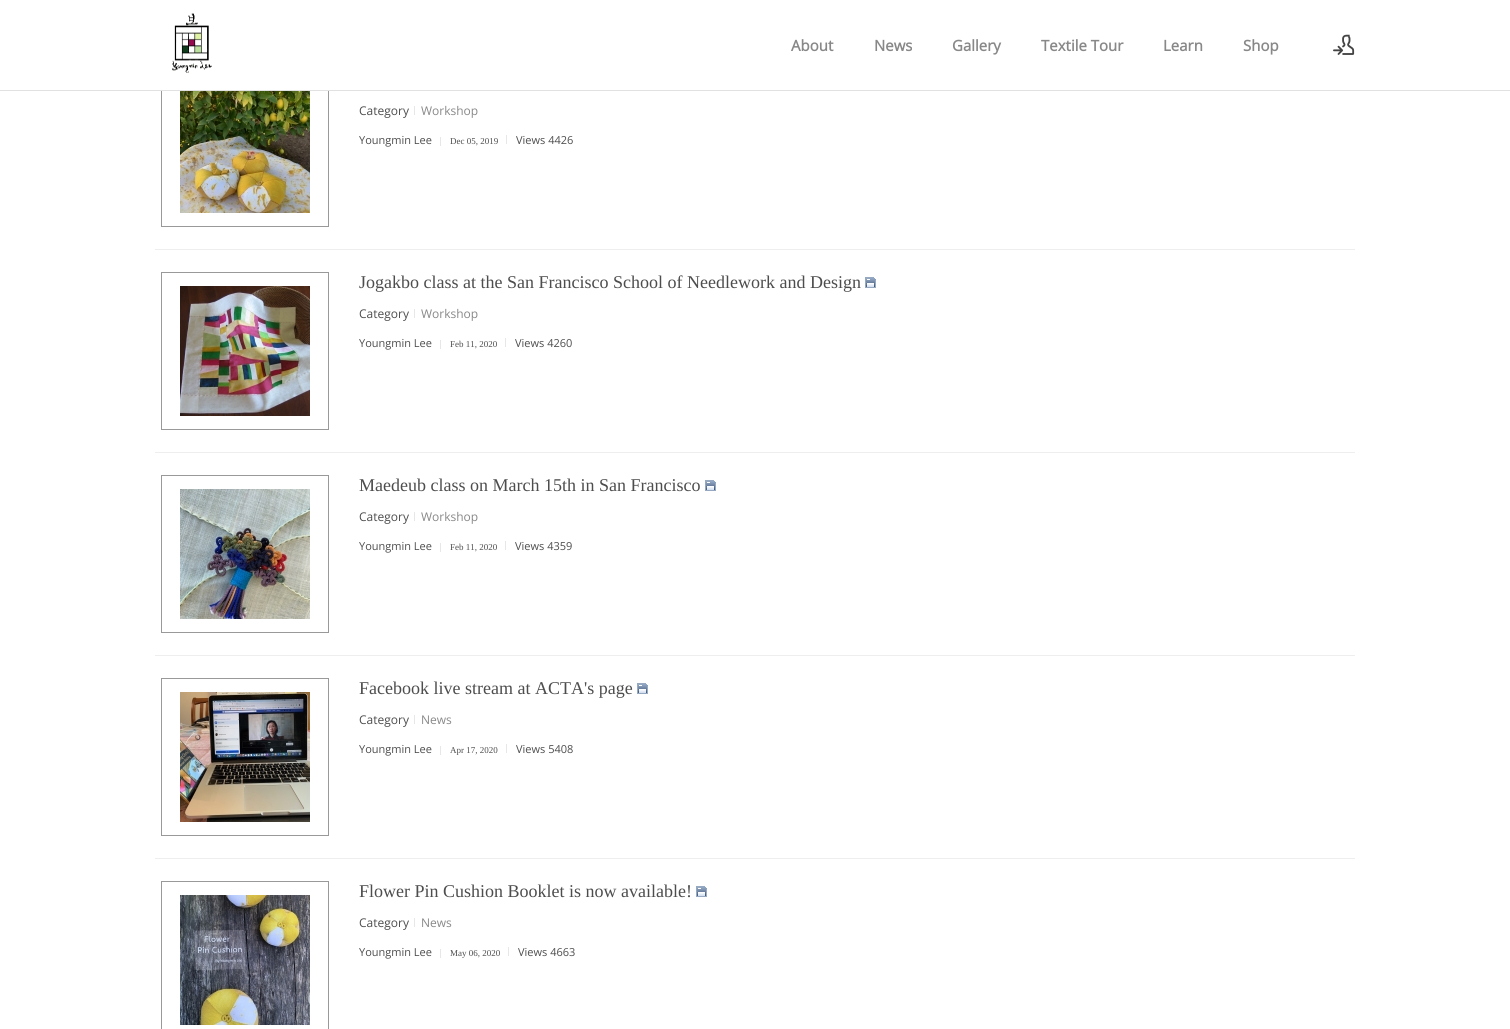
import math
import cairo

surface = cairo.ImageSurface(cairo.FORMAT_RGB24, 1510, 1029)
c = cairo.Context(surface)
options = cairo.FontOptions()
options.set_hint_metrics(cairo.HINT_METRICS_OFF)
options.set_hint_style(cairo.HINT_STYLE_NONE)
c.set_font_options(options)
c.set_miter_limit(4)
def C(code):
 c.set_source_rgb(*(v / 255 for v in bytes.fromhex(code[-6:])))
def F(family, size, italic, bold):
 c.select_font_face(family, cairo.FONT_SLANT_ITALIC if italic else cairo.FONT_SLANT_NORMAL, cairo.FONT_WEIGHT_BOLD if bold else cairo.FONT_WEIGHT_NORMAL)
 c.set_font_size(size)
def T(x, y, s):
 c.move_to(x, y)
 c.show_text(s)
def R(x, y, w, h):
 c.rectangle(x, y, w, h)
 c.fill()
def I(path, x, y, w, h):
 c.save()
 c.set_source_surface(cairo.ImageSurface.create_from_png(path), x, y)
 c.rectangle(x, y, w, h)
 c.fill()
 c.restore()
C('ffffff')
c.paint()
c.rectangle(161.5,69.5,167,157)
C('999999')
c.set_line_width(1)
c.stroke()
C('ffffff')
R(161,69,168,21)
C('e1e1e1')
R(0,90,1510,1)
I('1.png',172,13,40,60)
F('Open Sans',15,0,1)
C('888888')
T(791,51,'About')
T(874,51,'News')
T(952,51,'Gallery')
T(1041,51,'Textile Tour')
T(1163,51,'Learn')
T(1243,51,'Shop')
I('2.png',1333,34,22,21)
C('eeeeee')
R(155,249,1200,1)
I('3.png',180,91,130,122)
F('Open Sans',12,0,0)
C('4d4d4d')
T(359,115,'Category')
C('888888')
T(421,115,'Workshop')
C('e7e7e7')
R(414,106,1,9)
F('Open Sans',11,0,0)
C('4d4d4d')
T(359,144,'Youngmin Lee')
F('Liberation Serif',9,0,0)
T(450,144,'Dec 05, 2019')
C('e7e7e7')
R(440,137,1,9)
F('Open Sans',11,0,0)
C('4d4d4d')
T(516,144,'Views 4426')
C('e7e7e7')
R(506,135,1,9)
C('eeeeee')
R(155,452,1200,1)
c.rectangle(161.5,272.5,167,157)
C('999999')
c.stroke()
I('4.png',180,286,130,130)
F('Liberation Serif',18,0,0)
C('4d4d4d')
T(359,288,'Jogakbo class at the San Francisco School of Needlework and Design')
I('5.png',865,277,11,11)
F('Open Sans',12,0,0)
T(359,318,'Category')
C('888888')
T(421,318,'Workshop')
C('e7e7e7')
R(414,309,1,9)
F('Open Sans',11,0,0)
C('4d4d4d')
T(359,347,'Youngmin Lee')
F('Liberation Serif',9,0,0)
T(450,347,'Feb 11, 2020')
C('e7e7e7')
R(440,340,1,9)
F('Open Sans',11,0,0)
C('4d4d4d')
T(515,347,'Views 4260')
C('e7e7e7')
R(505,338,1,9)
C('eeeeee')
R(155,655,1200,1)
c.rectangle(161.5,475.5,167,157)
C('999999')
c.stroke()
I('6.png',180,489,130,130)
F('Liberation Serif',18,0,0)
C('4d4d4d')
T(359,491,'Maedeub class on March 15th in San Francisco')
I('5.png',705,480,11,11)
F('Open Sans',12,0,0)
T(359,521,'Category')
C('888888')
T(421,521,'Workshop')
C('e7e7e7')
R(414,512,1,9)
F('Open Sans',11,0,0)
C('4d4d4d')
T(359,550,'Youngmin Lee')
F('Liberation Serif',9,0,0)
T(450,550,'Feb 11, 2020')
C('e7e7e7')
R(440,543,1,9)
F('Open Sans',11,0,0)
C('4d4d4d')
T(515,550,'Views 4359')
C('e7e7e7')
R(505,541,1,9)
C('eeeeee')
R(155,858,1200,1)
c.rectangle(161.5,678.5,167,157)
C('999999')
c.stroke()
I('7.png',180,692,130,130)
F('Liberation Serif',18,0,0)
C('4d4d4d')
T(359,694,'Facebook live stream at ACTA\'s page')
I('5.png',637,683,11,11)
F('Open Sans',12,0,0)
T(359,724,'Category')
C('888888')
T(421,724,'News')
C('e7e7e7')
R(414,715,1,9)
F('Open Sans',11,0,0)
C('4d4d4d')
T(359,753,'Youngmin Lee')
F('Liberation Serif',9,0,0)
T(450,753,'Apr 17, 2020')
C('e7e7e7')
R(440,746,1,9)
F('Open Sans',11,0,0)
C('4d4d4d')
T(516,753,'Views 5408')
C('e7e7e7')
R(506,744,1,9)
c.rectangle(161.5,881.5,167,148)
C('999999')
c.stroke()
I('8.png',180,895,130,130)
F('Liberation Serif',18,0,0)
C('4d4d4d')
T(359,897,'Flower Pin Cushion Booklet is now available!')
I('5.png',696,886,11,11)
F('Open Sans',12,0,0)
T(359,927,'Category')
C('888888')
T(421,927,'News')
C('e7e7e7')
R(414,918,1,9)
F('Open Sans',11,0,0)
C('4d4d4d')
T(359,956,'Youngmin Lee')
F('Liberation Serif',9,0,0)
T(450,956,'May 06, 2020')
C('e7e7e7')
R(440,949,1,9)
F('Open Sans',11,0,0)
C('4d4d4d')
T(518,956,'Views 4663')
C('e7e7e7')
R(508,947,1,9)
surface.write_to_png('o.png')
